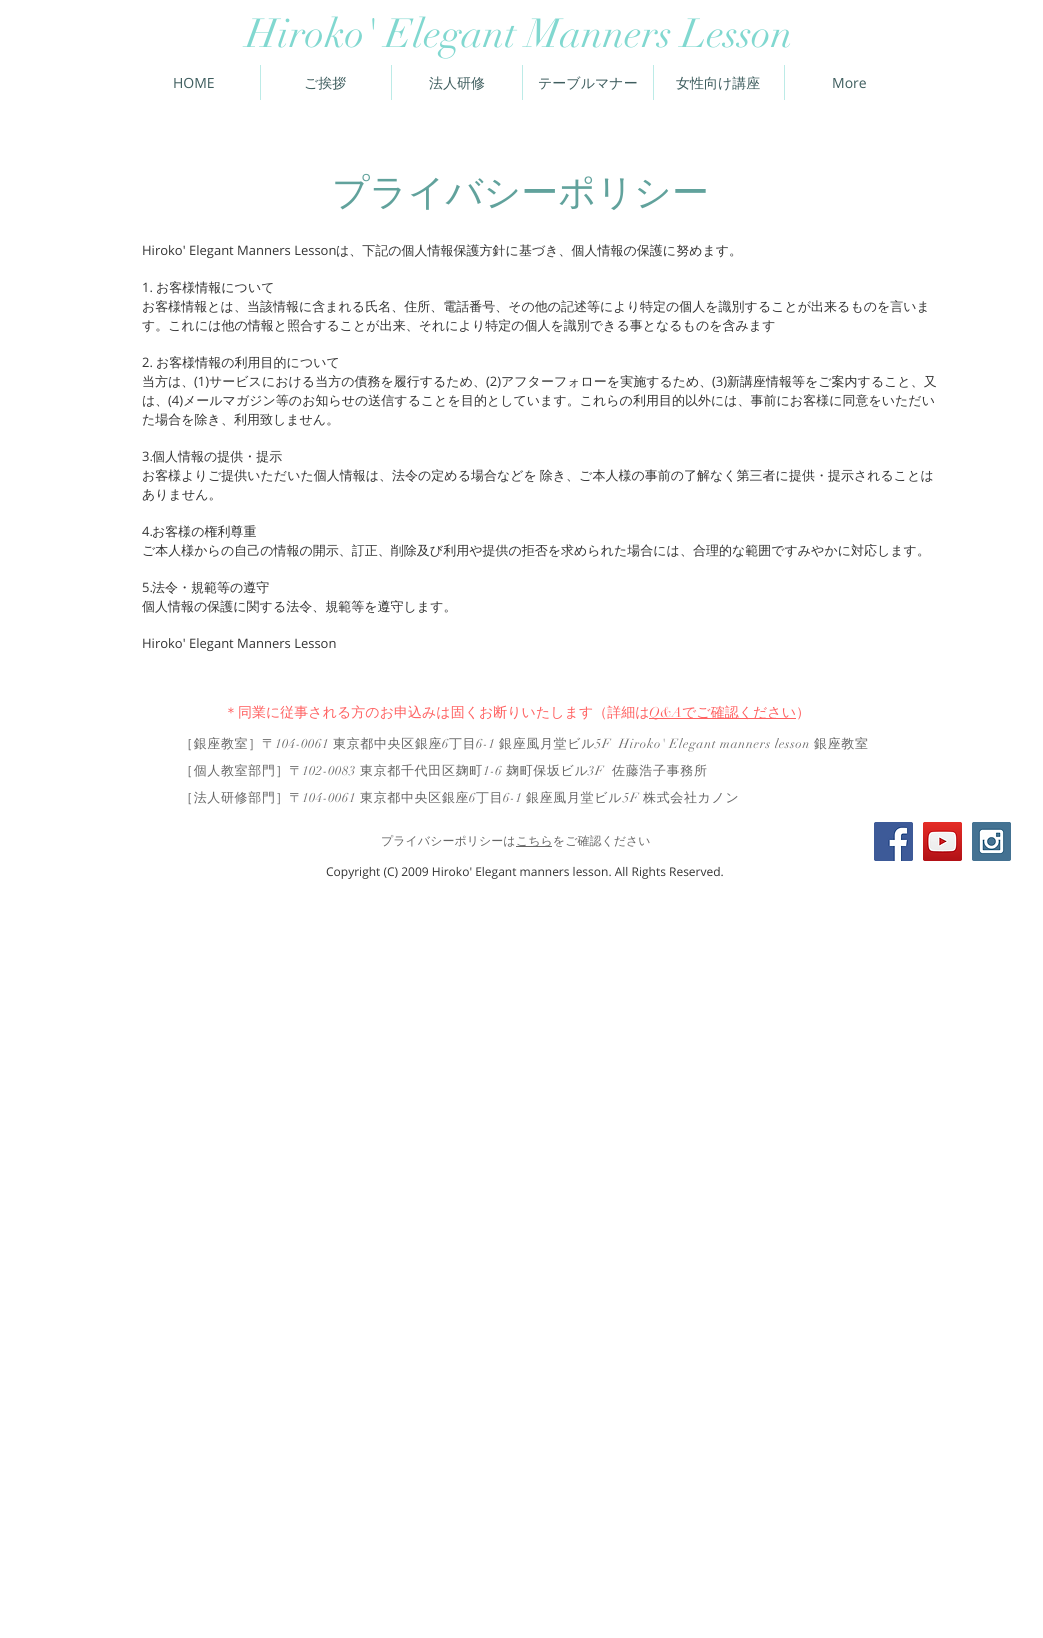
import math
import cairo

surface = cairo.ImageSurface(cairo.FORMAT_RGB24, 1043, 1638)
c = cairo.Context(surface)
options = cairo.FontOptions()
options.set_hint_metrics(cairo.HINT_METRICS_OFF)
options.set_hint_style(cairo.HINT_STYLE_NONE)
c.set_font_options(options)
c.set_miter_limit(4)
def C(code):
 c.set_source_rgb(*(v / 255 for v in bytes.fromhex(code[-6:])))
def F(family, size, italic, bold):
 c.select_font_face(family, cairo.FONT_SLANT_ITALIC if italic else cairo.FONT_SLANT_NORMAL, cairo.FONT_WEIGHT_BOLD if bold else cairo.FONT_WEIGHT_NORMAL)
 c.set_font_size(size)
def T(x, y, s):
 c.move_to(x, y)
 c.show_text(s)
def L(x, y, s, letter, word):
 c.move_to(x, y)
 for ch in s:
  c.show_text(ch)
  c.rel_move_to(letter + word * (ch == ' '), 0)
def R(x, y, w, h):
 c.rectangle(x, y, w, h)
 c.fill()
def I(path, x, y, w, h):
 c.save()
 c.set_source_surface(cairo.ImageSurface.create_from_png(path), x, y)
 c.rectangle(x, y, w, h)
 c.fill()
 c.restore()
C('ffffff')
c.paint()
F('didot',40,0,0)
C('81d8d0')
T(246,47,'Hiroko\' Elegant Manners Lesson')
F('Open Sans',14,0,0)
C('3e5d5e')
T(173,88,'HOME')
C('bcebe7')
R(260,65,1,35)
F('WenQuanYi Zen Hei Medium',14,0,0)
C('3e5d5e')
T(304,88,'ご挨拶')
C('bcebe7')
R(391,65,1,35)
C('3e5d5e')
T(429,88,'法人研修')
C('bcebe7')
R(522,65,1,35)
C('3e5d5e')
T(538,88,'テーブルマナー')
C('bcebe7')
R(653,65,1,35)
C('3e5d5e')
T(676,88,'女性向け講座')
C('bcebe7')
R(784,65,1,35)
F('Open Sans',14,0,0)
C('3e5d5e')
T(832,88,'More')
F('WenQuanYi Zen Hei Medium',37,0,0)
C('61a29c')
T(332,205,'プライバシーポリシー')
F('Open Sans',13,0,0)
C('333333')
T(142,255,'Hiroko\' Elegant Manners Lesson')
F('WenQuanYi Zen Hei Medium',13,0,0)
T(336,255,'は、下記の個人情報保護方針に基づき、個人情報の保護に努めます。')
F('Open Sans',13,0,0)
T(142,292,'1.')
F('WenQuanYi Zen Hei Medium',13,0,0)
T(156,292,'お客様情報について')
T(142,311,'お客様情報とは、当該情報に含まれる氏名、住所、電話番号、その他の記述等により特定の個人を識別することが出来るものを言いま')
T(142,330,'す。これには他の情報と照合することが出来、それにより特定の個人を識別できる事となるものを含みます')
F('Open Sans',13,0,0)
T(142,367,'2.')
F('WenQuanYi Zen Hei Medium',13,0,0)
T(156,367,'お客様情報の利用目的について')
T(142,386,'当方は、')
F('Open Sans',13,0,0)
T(194,386,'(1)')
F('WenQuanYi Zen Hei Medium',13,0,0)
T(209,386,'サービスにおける当方の債務を履行するため、')
F('Open Sans',13,0,0)
T(486,386,'(2)')
F('WenQuanYi Zen Hei Medium',13,0,0)
T(501,386,'アフターフォローを実施するため、')
F('Open Sans',13,0,0)
T(712,386,'(3)')
F('WenQuanYi Zen Hei Medium',13,0,0)
T(727,386,'新講座情報等をご案内すること、又')
T(142,405,'は、')
F('Open Sans',13,0,0)
T(168,405,'(4)')
F('WenQuanYi Zen Hei Medium',13,0,0)
T(183,405,'メールマガジン等のお知らせの送信することを目的としています。これらの利用目的以外には、事前にお客様に同意をいただい')
T(142,424,'た場合を除き、利用致しません。')
F('Open Sans',13,0,0)
T(142,461,'3.')
F('WenQuanYi Zen Hei Medium',13,0,0)
T(152,461,'個人情報の提供・提示')
L(142,480,'お客様よりご提供いただいた個人情報は、法令の定める場合などを 除き、ご本人様の事前の了解なく第三者に提供・提示されることは',0,-1)
T(142,499,'ありません。')
F('Open Sans',13,0,0)
T(142,536,'4.')
F('WenQuanYi Zen Hei Medium',13,0,0)
T(152,536,'お客様の権利尊重')
T(142,555,'ご本人様からの自己の情報の開示、訂正、削除及び利用や提供の拒否を求められた場合には、合理的な範囲ですみやかに対応します。')
F('Open Sans',13,0,0)
T(142,592,'5.')
F('WenQuanYi Zen Hei Medium',13,0,0)
T(152,592,'法令・規範等の遵守')
T(142,611,'個人情報の保護に関する法令、規範等を遵守します。')
F('Open Sans',13,0,0)
T(142,648,'Hiroko\' Elegant Manners Lesson')
F('WenQuanYi Zen Hei Medium',14,0,0)
C('ff6161')
T(224,717,'＊同業に従事される方のお申込みは固くお断りいたします（詳細は')
R(649,718,147,1)
F('didot',14,0,0)
T(649,717,'Q&A')
F('WenQuanYi Zen Hei Medium',14,0,0)
T(682,717,'でご確認ください）')
F('WenQuanYi Zen Hei Medium',13,0,0)
C('666666')
L(180,748,'［銀座教室］〒',.65,0)
F('didot',13,0,0)
L(275,748,'104-0061',.65,0)
F('WenQuanYi Zen Hei Medium',13,0,0)
L(333,748,'東京都中央区銀座',.65,0)
F('didot',13,0,0)
L(442,748,'6',.65,0)
F('WenQuanYi Zen Hei Medium',13,0,0)
L(449,748,'丁目',.65,0)
F('didot',13,0,0)
L(476,748,'6-1',.65,0)
F('WenQuanYi Zen Hei Medium',13,0,0)
L(499,748,'銀座風月堂ビル',.65,0)
F('didot',13,0,0)
L(595,748,'5F  Hiroko\' Elegant manners lesson',.65,0)
F('WenQuanYi Zen Hei Medium',13,0,0)
L(814,748,'銀座教室',.65,0)
L(180,775,'［個人教室部門］〒',.65,0)
F('didot',13,0,0)
L(302,775,'102-0083',.65,0)
F('WenQuanYi Zen Hei Medium',13,0,0)
L(360,775,'東京都千代田区麹町',.65,0)
F('didot',13,0,0)
L(483,775,'1-6',.65,0)
F('WenQuanYi Zen Hei Medium',13,0,0)
L(506,775,'麹町保坂ビル',.65,0)
F('didot',13,0,0)
L(588,775,'3F',.65,0)
F('WenQuanYi Zen Hei Medium',13,0,0)
L(612,775,'佐藤浩子事務所',.65,0)
L(180,802,'［法人研修部門］〒',.65,0)
F('didot',13,0,0)
L(302,802,'104-0061',.65,0)
F('WenQuanYi Zen Hei Medium',13,0,0)
L(360,802,'東京都中央区銀座',.65,0)
F('didot',13,0,0)
L(469,802,'6',.65,0)
F('WenQuanYi Zen Hei Medium',13,0,0)
L(476,802,'丁目',.65,0)
F('didot',13,0,0)
L(503,802,'6-1',.65,0)
F('WenQuanYi Zen Hei Medium',13,0,0)
L(526,802,'銀座風月堂ビル',.65,0)
F('didot',13,0,0)
L(623,802,'5F',.65,0)
F('WenQuanYi Zen Hei Medium',13,0,0)
L(643,802,'株式会社カノン',.65,0)
F('WenQuanYi Zen Hei Medium',12,0,0)
T(381,845,'プライバシーポリシーは')
R(516,846,36,1)
T(516,845,'こちらをご確認ください')
I('1.png',874,822,39,39)
I('2.png',923,822,39,39)
I('3.png',972,822,39,39)
F('Open Sans',12,0,0)
C('333333')
T(326,876,'Copyright (C) 2009 Hiroko\' Elegant manners lesson. All Rights Reserved.')
surface.write_to_png('o.png')
